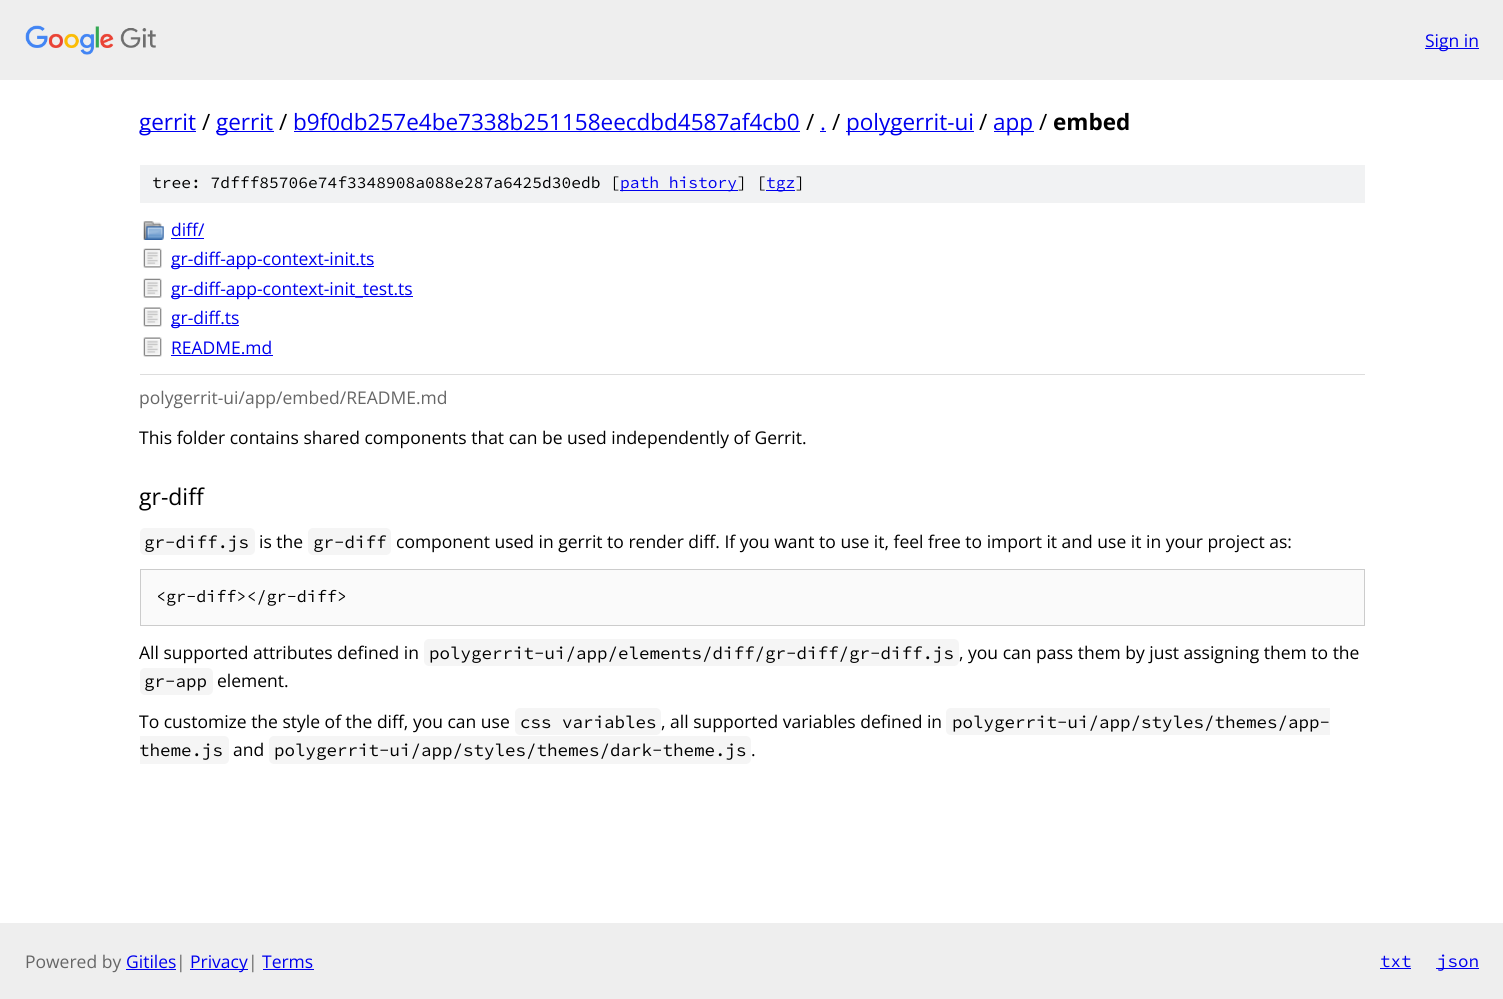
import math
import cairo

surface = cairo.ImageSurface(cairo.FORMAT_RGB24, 1503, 999)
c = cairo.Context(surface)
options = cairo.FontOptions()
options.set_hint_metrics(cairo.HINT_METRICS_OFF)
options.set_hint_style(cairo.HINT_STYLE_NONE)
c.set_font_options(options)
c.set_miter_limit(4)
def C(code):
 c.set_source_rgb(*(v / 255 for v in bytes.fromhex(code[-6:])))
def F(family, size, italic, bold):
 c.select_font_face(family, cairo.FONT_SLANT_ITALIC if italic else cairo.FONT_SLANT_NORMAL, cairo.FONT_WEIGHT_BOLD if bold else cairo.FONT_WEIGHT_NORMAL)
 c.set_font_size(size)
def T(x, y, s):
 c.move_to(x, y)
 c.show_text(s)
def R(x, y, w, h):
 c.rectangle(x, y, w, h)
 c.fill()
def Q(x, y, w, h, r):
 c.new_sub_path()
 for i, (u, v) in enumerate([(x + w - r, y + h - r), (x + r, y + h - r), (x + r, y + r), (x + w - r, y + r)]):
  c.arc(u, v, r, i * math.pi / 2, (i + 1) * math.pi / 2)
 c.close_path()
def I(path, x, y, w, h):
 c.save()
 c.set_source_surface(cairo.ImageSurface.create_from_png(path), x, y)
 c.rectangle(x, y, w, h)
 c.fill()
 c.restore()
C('ffffff')
c.paint()
C('eeeeee')
R(0,0,1503,80)
I('1.png',25,25,131,30)
C('0000ee')
R(1425,48,54,1)
F('Open Sans',17.5,0,0)
T(1425,47,'Sign in')
R(140,131,56,1)
F('Open Sans',22.5,0,0)
T(139,130,'gerrit')
C('000000')
T(202,130,'/')
C('0000ee')
R(216,131,58,1)
T(216,130,'gerrit')
C('000000')
T(279,130,'/')
C('0000ee')
T(293,130,'b9f0db257e4be7338b251158eecdbd4587af4cb0')
R(294,131,506,1)
C('000000')
T(806,130,'/')
C('0000ee')
T(820,130,'.')
R(820,131,6,1)
C('000000')
T(832,130,'/')
C('0000ee')
R(846,131,128,1)
T(846,130,'polygerrit-ui')
C('000000')
T(979,130,'/')
C('0000ee')
R(994,131,40,1)
T(993,130,'app')
C('000000')
T(1039,130,'/')
F('Open Sans',22.5,0,1)
T(1053,130,'embed')
C('f1f2f3')
R(140,165,1225,38)
F('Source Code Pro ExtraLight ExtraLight',16.25,0,0)
C('000000')
T(152,188,'tree: 7dfff85706e74f3348908a088e287a6425d30edb [')
C('0000ee')
R(620,190,118,1)
T(620,188,'path history')
C('000000')
T(737,188,'] [')
C('0000ee')
R(766,190,29,1)
T(766,188,'tgz')
C('000000')
T(795,188,']')
I('2.png',143,221,21,19)
F('Open Sans',17.5,0,0)
C('0000ee')
T(171,236,'diff/')
R(171,238,33,1)
I('3.png',143,248,19,20)
R(171,266,203,1)
T(171,265,'gr-diff-app-context-init.ts')
I('4.png',143,278,19,20)
R(171,296,242,1)
T(171,295,'gr-diff-app-context-init_test.ts')
I('5.png',143,307,19,20)
R(171,325,68,1)
T(171,324,'gr-diff.ts')
I('5.png',143,337,19,20)
T(171,354,'README.md')
R(171,355,102,1)
C('dddddd')
R(140,374,1225,1)
C('666666')
T(139,404,'polygerrit-ui/app/embed/README.md')
C('000000')
T(139,444,'This folder contains shared components that can be used independently of Gerrit.')
F('Open Sans',23,0,0)
T(139,505,'gr-diff')
C('f5f5f5')
Q(140,528,115,27,5)
c.fill()
F('Source Code Pro ExtraLight ExtraLight',17.5,0,0)
C('000000')
T(144,548,'gr-diff.js')
F('Open Sans',17.5,0,0)
T(259,548,'is the')
C('f5f5f5')
Q(308,528,83,27,5)
c.fill()
F('Source Code Pro ExtraLight ExtraLight',17.5,0,0)
C('000000')
T(313,548,'gr-diff')
F('Open Sans',17.5,0,0)
T(396,548,'component used in gerrit to render diff. If you want to use it, feel free to import it and use it in your project as:')
C('fafafa')
c.rectangle(140.5,569.5,1224,56)
c.fill_preserve()
C('cccccc')
c.set_line_width(1)
c.stroke()
F('Source Code Pro ExtraLight ExtraLight',16.75,0,0)
C('000000')
T(156,602,'<gr-diff></gr-diff>')
F('Open Sans',17.5,0,0)
T(139,659,'All supported attributes defined in')
C('f5f5f5')
Q(424,639,535,27,5)
c.fill()
F('Source Code Pro ExtraLight ExtraLight',17.5,0,0)
C('000000')
T(429,659,'polygerrit-ui/app/elements/diff/gr-diff/gr-diff.js')
F('Open Sans',17.5,0,0)
T(959,659,', you can pass them by just assigning them to the')
C('f5f5f5')
Q(140,668,73,27,5)
c.fill()
F('Source Code Pro ExtraLight ExtraLight',17.5,0,0)
C('000000')
T(144,687,'gr-app')
F('Open Sans',17.5,0,0)
T(217,687,'element.')
T(139,728,'To customize the style of the diff, you can use')
C('f5f5f5')
Q(515,708,146,27,5)
c.fill()
F('Source Code Pro ExtraLight ExtraLight',17.5,0,0)
C('000000')
T(520,728,'css variables')
F('Open Sans',17.5,0,0)
T(661,728,', all supported variables defined in')
C('f5f5f5')
c.new_path()
c.move_to(951,708)
c.line_to(1330,708)
c.line_to(1330,735)
c.line_to(951,735)
c.curve_to(948,735,946,733,946,730)
c.line_to(946,713)
c.curve_to(946,710,948,708,951,708)
c.close_path()
c.fill()
F('Source Code Pro ExtraLight ExtraLight',17.5,0,0)
C('000000')
T(952,728,'polygerrit-ui/app/styles/themes/app-')
C('f5f5f5')
c.new_path()
c.move_to(140,736)
c.line_to(224,736)
c.curve_to(227,736,229,738,229,741)
c.line_to(229,759)
c.curve_to(229,762,227,764,224,764)
c.line_to(140,764)
c.close_path()
c.fill()
C('000000')
T(139,756,'theme.js')
F('Open Sans',17.5,0,0)
T(233,756,'and')
C('f5f5f5')
Q(269,736,482,28,5)
c.fill()
F('Source Code Pro ExtraLight ExtraLight',17.5,0,0)
C('000000')
T(274,756,'polygerrit-ui/app/styles/themes/dark-theme.js')
F('Open Sans',17.5,0,0)
T(751,756,'.')
C('eeeeee')
R(0,923,1503,76)
C('666666')
T(25,968,'Powered by')
C('0000ee')
T(126,968,'Gitiles')
R(126,969,50,1)
C('666666')
T(176,968,'|')
C('0000ee')
R(190,969,58,1)
T(190,968,'Privacy')
C('666666')
T(248,968,'|')
C('0000ee')
T(262,968,'Terms')
R(263,969,51,1)
F('Source Code Pro ExtraLight ExtraLight',17.5,0,0)
T(1380,967,'txt')
R(1380,968,31,1)
R(1436,968,43,1)
T(1437,967,'json')
surface.write_to_png('o.png')
